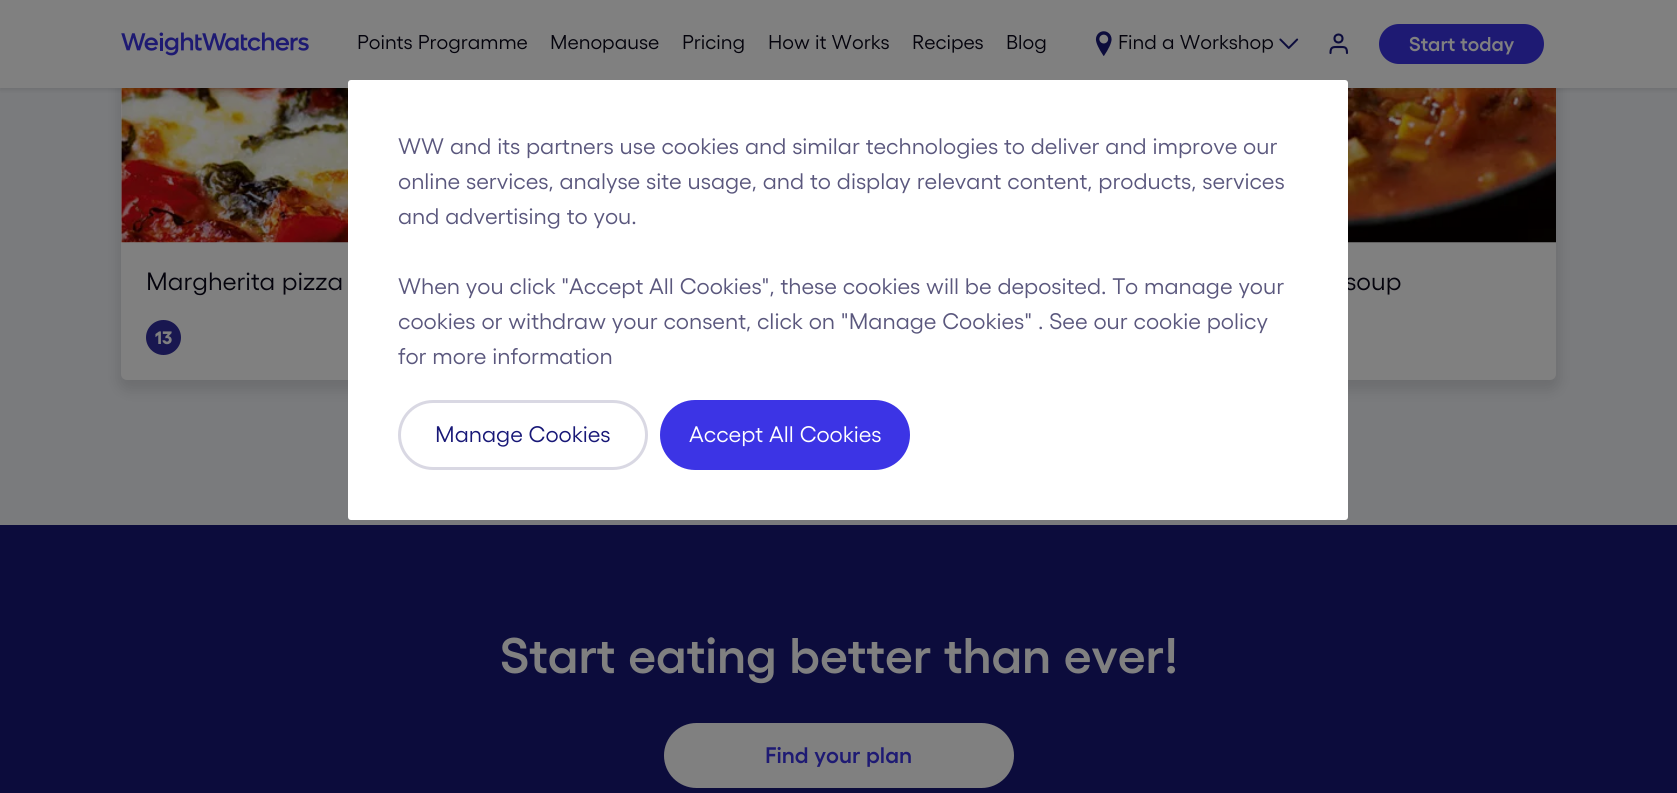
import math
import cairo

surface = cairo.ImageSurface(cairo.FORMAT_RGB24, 1677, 793)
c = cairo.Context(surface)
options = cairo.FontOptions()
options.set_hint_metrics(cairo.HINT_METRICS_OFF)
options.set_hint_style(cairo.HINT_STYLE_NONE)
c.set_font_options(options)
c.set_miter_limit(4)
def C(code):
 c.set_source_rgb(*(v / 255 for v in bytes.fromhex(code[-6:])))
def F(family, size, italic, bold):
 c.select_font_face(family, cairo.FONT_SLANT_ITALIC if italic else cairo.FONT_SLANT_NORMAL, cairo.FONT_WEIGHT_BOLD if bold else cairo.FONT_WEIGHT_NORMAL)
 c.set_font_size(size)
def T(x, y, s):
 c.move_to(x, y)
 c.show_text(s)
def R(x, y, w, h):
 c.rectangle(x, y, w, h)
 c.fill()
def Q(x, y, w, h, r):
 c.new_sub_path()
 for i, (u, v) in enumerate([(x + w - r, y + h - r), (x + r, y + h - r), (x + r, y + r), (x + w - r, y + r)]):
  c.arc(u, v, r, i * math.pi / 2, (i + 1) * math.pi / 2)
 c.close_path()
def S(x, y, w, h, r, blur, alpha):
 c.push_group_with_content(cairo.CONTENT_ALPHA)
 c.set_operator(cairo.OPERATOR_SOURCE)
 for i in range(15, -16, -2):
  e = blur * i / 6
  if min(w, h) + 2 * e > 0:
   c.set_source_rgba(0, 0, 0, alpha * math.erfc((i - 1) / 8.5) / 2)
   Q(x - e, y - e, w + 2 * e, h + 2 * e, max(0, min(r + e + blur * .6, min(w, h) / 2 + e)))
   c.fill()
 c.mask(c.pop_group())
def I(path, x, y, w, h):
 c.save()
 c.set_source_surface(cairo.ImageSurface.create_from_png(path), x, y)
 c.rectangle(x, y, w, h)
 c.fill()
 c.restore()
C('7a7b7d')
c.paint()
C('000000')
S(119,-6,455,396,9,7.5,.12)
C('808080')
Q(121,-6,450,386,6)
c.fill()
I('4.png',121,88,227,155)
C('000000')
S(1104,-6,455,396,9,7.5,.12)
C('808080')
Q(1106,-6,450,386,6)
c.fill()
I('5.png',1348,88,208,155)
C('000000')
S(0,3,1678,87,0,2.5,.1)
C('808080')
R(0,0,1677,88)
I('1.png',121,32,188,24)
F('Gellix',20,0,0)
C('04030c')
T(357,49,'Points Programme')
T(550,49,'Menopause')
T(682,49,'Pricing')
T(768,49,'How it Works')
T(912,49,'Recipes')
T(1006,49,'Blog')
I('2.png',1095,31,17,25)
T(1118,49,'Find a Workshop')
I('3.png',1279,38,20,11)
c.arc(1338.5,38.5,4,0,2 * math.pi)
C('0c0c3c')
c.set_line_width(2.1)
c.stroke()
c.new_path()
c.move_to(1347,53)
c.curve_to(1347,46.5,1344.5,47,1339,47)
c.curve_to(1333,47,1330.5,46.5,1330.5,53)
c.set_line_cap(cairo.LINE_CAP_ROUND)
c.set_line_join(cairo.LINE_JOIN_ROUND)
c.stroke()
C('1e1a73')
Q(1379,24,165,40,20)
c.fill()
F('Gellix SemiBold',20,0,0)
C('808080')
T(1409,51,'Start today')
F('Gellix',25,0,0)
C('04030c')
T(146,290,'Margherita pizza')
C('191750')
c.new_path()
c.arc(163.5,337.5,17.5,0,2 * math.pi)
c.fill()
F('Gellix',18,0,1)
C('808080')
T(155,344,'13')
F('Gellix',25,0,0)
C('04030c')
T(1345,290,'soup')
C('0c0c3c')
R(0,525,1677,268)
F('Gellix SemiBold',50,0,0)
C('808080')
T(500,673,'Start eating better than ever!')
Q(665.5,724.5,347,62,31)
c.fill_preserve()
c.set_line_width(3)
c.set_line_cap(cairo.LINE_CAP_BUTT)
c.set_line_join(cairo.LINE_JOIN_MITER)
c.stroke()
F('Gellix SemiBold',22.5,0,0)
C('1e1a73')
T(765,763,'Find your plan')
C('ffffff')
Q(348,80,1000,440,3)
c.fill()
F('Gellix',22.5,0,0)
C('5a577d')
T(398,154,'WW and its partners use cookies and similar technologies to deliver and improve our')
T(398,189,'online services, analyse site usage, and to display relevant content, products, services')
T(398,224,'and advertising to you.')
T(398,294,'When you click "Accept All Cookies", these cookies will be deposited. To manage your')
T(398,329,'cookies or withdraw your consent, click on "Manage Cookies" . See our cookie policy')
T(398,364,'for more information')
Q(399.5,401.5,247,67,33.5)
C('d9d8e3')
c.stroke()
C('181877')
T(435,442,'Manage Cookies')
C('3c34e5')
Q(660,400,250,70,35)
c.fill()
C('ffffff')
T(689,442,'Accept All Cookies')
surface.write_to_png('o.png')
